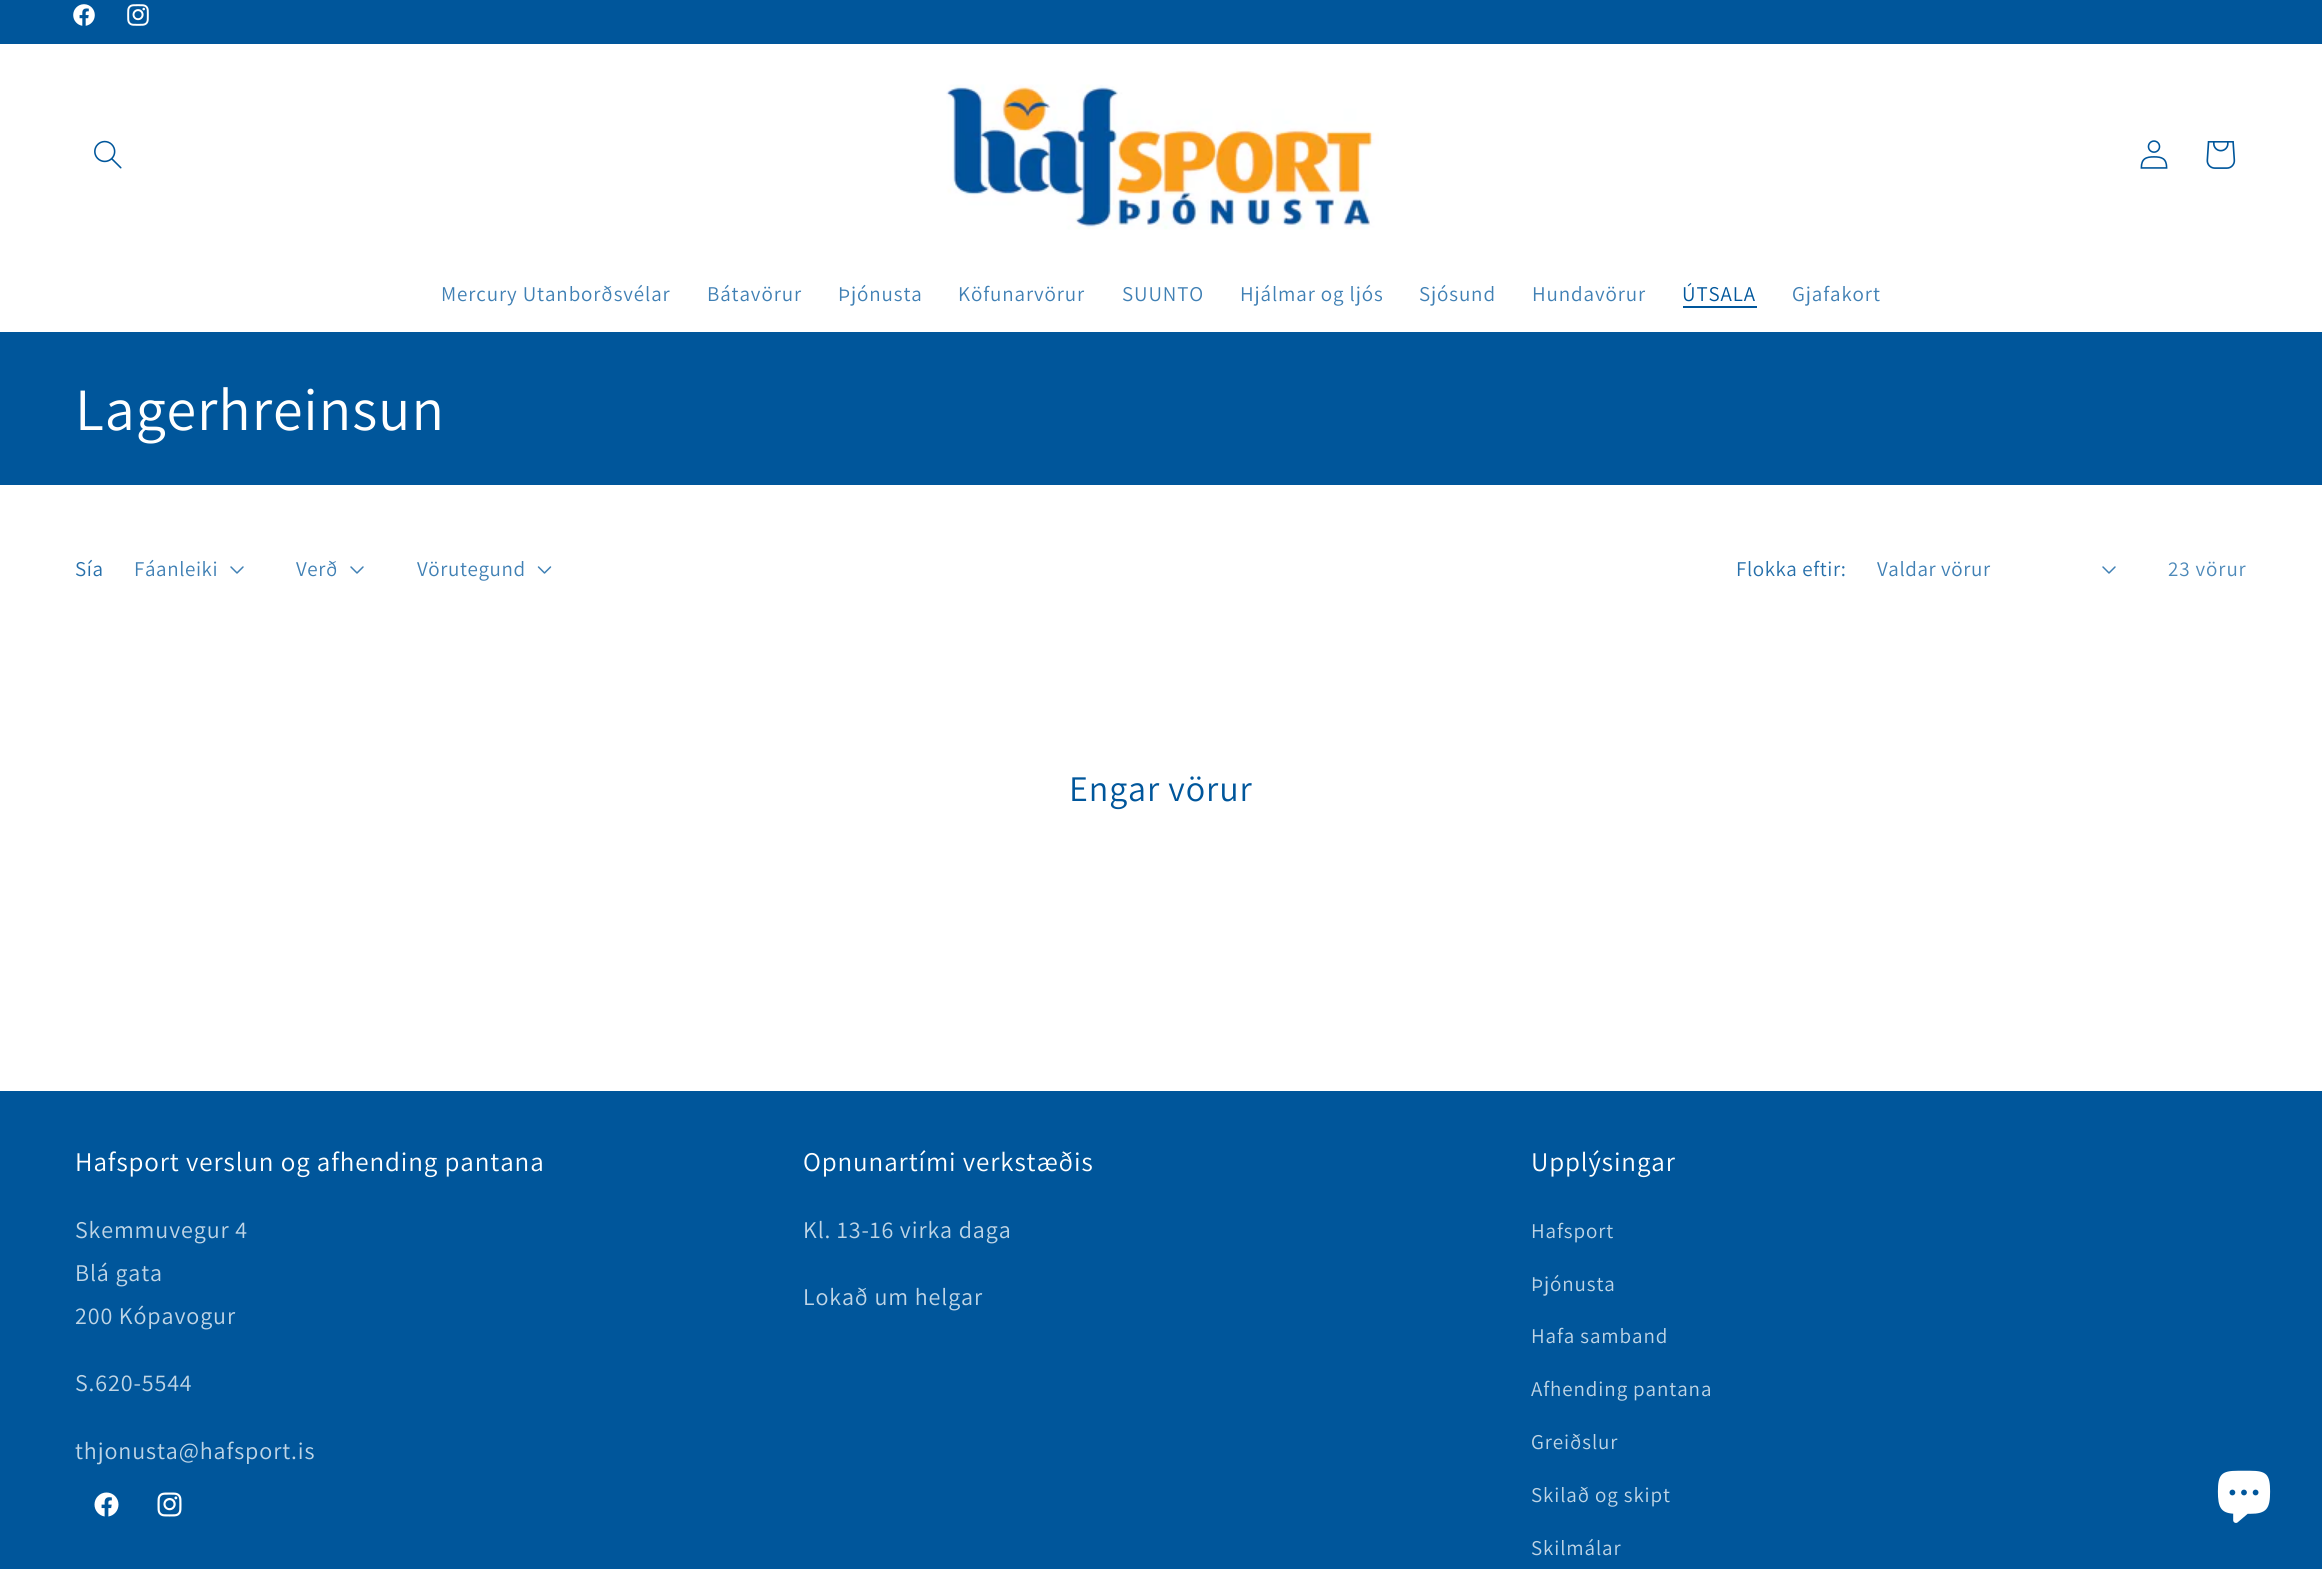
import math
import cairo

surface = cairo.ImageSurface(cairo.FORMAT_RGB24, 2322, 1569)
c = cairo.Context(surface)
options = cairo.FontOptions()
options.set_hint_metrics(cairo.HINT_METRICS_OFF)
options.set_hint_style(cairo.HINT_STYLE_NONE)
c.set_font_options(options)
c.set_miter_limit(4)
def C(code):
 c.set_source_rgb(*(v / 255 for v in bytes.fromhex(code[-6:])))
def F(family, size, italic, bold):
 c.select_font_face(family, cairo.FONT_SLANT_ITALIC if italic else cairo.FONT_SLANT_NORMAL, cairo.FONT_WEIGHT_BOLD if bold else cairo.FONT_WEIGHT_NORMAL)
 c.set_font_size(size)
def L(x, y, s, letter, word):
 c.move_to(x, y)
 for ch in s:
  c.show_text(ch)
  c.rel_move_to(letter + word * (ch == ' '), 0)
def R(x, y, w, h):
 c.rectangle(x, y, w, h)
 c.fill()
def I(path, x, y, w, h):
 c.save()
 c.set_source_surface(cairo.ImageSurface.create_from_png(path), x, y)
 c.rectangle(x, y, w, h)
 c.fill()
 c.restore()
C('ffffff')
c.paint()
C('00569b')
R(0,0,2322,44)
I('1.png',73,4,22,22)
I('2.png',127,4,22,22)
I('3.png',94,140,28,29)
I('4.png',946,84,433,146)
I('5.png',2140,140,28,29)
I('6.png',2206,141,30,28)
F('Assistant',21,0,0)
C('4080b4')
L(441,301,'Mercury Utanborðsvélar',.9,0)
L(707,301,'Bátavörur',.9,0)
L(838,301,'Þjónusta',.9,0)
L(958,301,'Köfunarvörur',.9,0)
L(1122,301,'SUUNTO',.9,0)
L(1240,301,'Hjálmar og ljós',.9,0)
L(1419,301,'Sjósund',.9,0)
L(1532,301,'Hundavörur',.9,0)
C('00569b')
L(1682,301,'ÚTSALA',.9,0)
R(1683,306,74,2)
C('4080b4')
L(1792,301,'Gjafakort',.9,0)
C('00569b')
R(0,332,2322,153)
F('Assistant',60,0,0)
C('ffffff')
L(75,430,'Lagerhreinsun',.9,0)
F('Assistant',21,0,0)
C('266faa')
L(75,576,'Sía',.6,0)
C('4080b4')
L(134,576,'Fáanleiki',.6,0)
I('7.png',230,566,14,8)
L(296,576,'Verð',.6,0)
I('7.png',350,566,14,8)
L(417,576,'Vörutegund',.6,0)
I('8.png',537,566,15,8)
C('266faa')
L(1736,576,'Flokka eftir:',.6,0)
C('4080b4')
L(1877,576,'Valdar vörur',.6,0)
I('7.png',2102,566,14,8)
C('4d89b9')
L(2168,576,'23 vörur',.9,0)
F('Assistant',36,0,0)
C('00569b')
L(1069,801,'Engar vörur',.9,0)
R(0,1091,2322,478)
F('Assistant',27,0,0)
C('ffffff')
L(75,1171,'Hafsport verslun og afhending pantana',.9,0)
F('Assistant',24,0,0)
C('bfd5e6')
L(75,1238,'Skemmuvegur 4',.9,0)
L(75,1281,'Blá gata',.9,0)
L(75,1324,'200 Kópavogur',.9,0)
L(75,1391,'S.620-5544',.9,0)
L(75,1459,'thjonusta@hafsport.is',.9,0)
I('9.png',94,1492,25,25)
I('10.png',157,1492,25,25)
F('Assistant',27,0,0)
C('ffffff')
L(803,1171,'Opnunartími verkstæðis',.9,0)
F('Assistant',24,0,0)
C('bfd5e6')
L(803,1238,'Kl. 13-16 virka daga',.9,0)
L(803,1305,'Lokað um helgar',.9,0)
F('Assistant',27,0,0)
C('ffffff')
L(1531,1171,'Upplýsingar',.9,0)
F('Assistant',21,0,0)
C('bfd5e6')
L(1531,1238,'Hafsport',.9,0)
L(1531,1291,'Þjónusta',.9,0)
L(1531,1343,'Hafa samband',.9,0)
L(1531,1396,'Afhending pantana',.9,0)
L(1531,1449,'Greiðslur',.9,0)
L(1531,1502,'Skilað og skipt',.9,0)
L(1531,1555,'Skilmálar',.9,0)
I('11.png',2217,1470,54,53)
surface.write_to_png('o.png')
